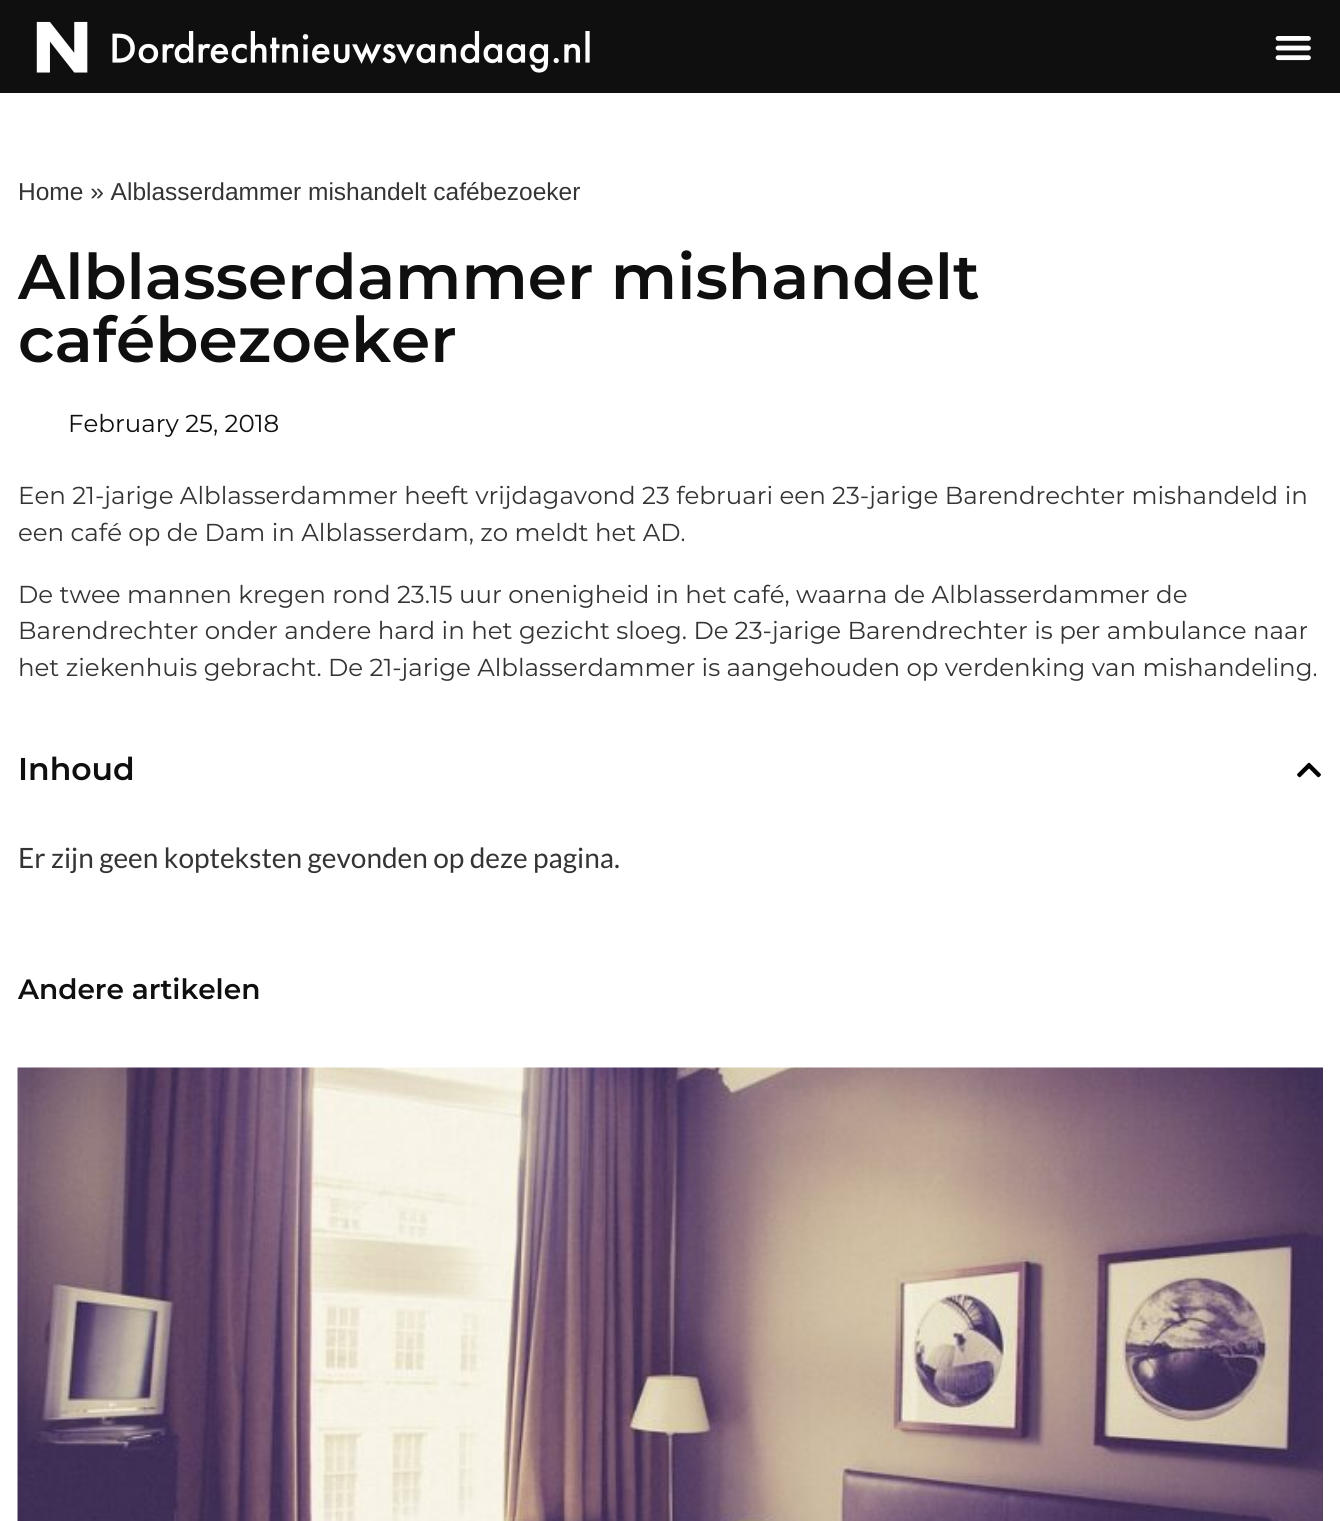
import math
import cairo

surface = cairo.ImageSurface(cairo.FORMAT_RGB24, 1340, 1521)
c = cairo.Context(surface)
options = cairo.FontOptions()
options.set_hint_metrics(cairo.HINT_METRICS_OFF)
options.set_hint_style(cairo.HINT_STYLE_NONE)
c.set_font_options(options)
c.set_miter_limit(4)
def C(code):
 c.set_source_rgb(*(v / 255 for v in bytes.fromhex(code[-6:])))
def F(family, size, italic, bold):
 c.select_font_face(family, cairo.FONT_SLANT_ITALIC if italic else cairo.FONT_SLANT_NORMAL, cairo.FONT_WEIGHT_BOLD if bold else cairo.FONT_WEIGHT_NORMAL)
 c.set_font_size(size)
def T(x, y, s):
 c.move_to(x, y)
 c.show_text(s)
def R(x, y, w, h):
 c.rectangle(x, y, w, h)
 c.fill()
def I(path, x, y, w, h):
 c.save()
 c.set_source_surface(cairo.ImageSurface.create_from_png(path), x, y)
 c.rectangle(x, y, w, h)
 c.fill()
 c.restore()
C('ffffff')
c.paint()
C('0f0f0f')
R(0,0,1340,93)
I('1.png',36,21,554,52)
I('2.png',1275,36,36,25)
F('Liberation Sans',24.5,0,0)
C('343434')
T(18,200,'Home » Alblasserdammer mishandelt cafébezoeker')
F('Montserrat SemiBold',63,0,0)
C('0f0f0f')
T(18,299,'Alblasserdammer mishandelt')
T(18,362,'cafébezoeker')
F('Montserrat',24.5,0,0)
T(68,432,'February 25, 2018')
C('343434')
T(18,504,'Een 21-jarige Alblasserdammer heeft vrijdagavond 23 februari een 23-jarige Barendrechter mishandeld in')
T(18,541,'een café op de Dam in Alblasserdam, zo meldt het AD.')
T(18,603,'De twee mannen kregen rond 23.15 uur onenigheid in het café, waarna de Alblasserdammer de')
T(18,639,'Barendrechter onder andere hard in het gezicht sloeg. De 23-jarige Barendrechter is per ambulance naar')
T(18,676,'het ziekenhuis gebracht. De 21-jarige Alblasserdammer is aangehouden op verdenking van mishandeling.')
F('Montserrat SemiBold',31.5,0,0)
C('0f0f0f')
T(18,780,'Inhoud')
I('3.png',1297,762,24,16)
F('Lato',28,0,0)
C('343434')
T(18,868,'Er zijn geen kopteksten gevonden op deze pagina.')
F('Montserrat SemiBold',28,0,0)
C('0f0f0f')
T(18,999,'Andere artikelen')
I('4.png',17,1067,1306,454)
surface.write_to_png('o.png')
